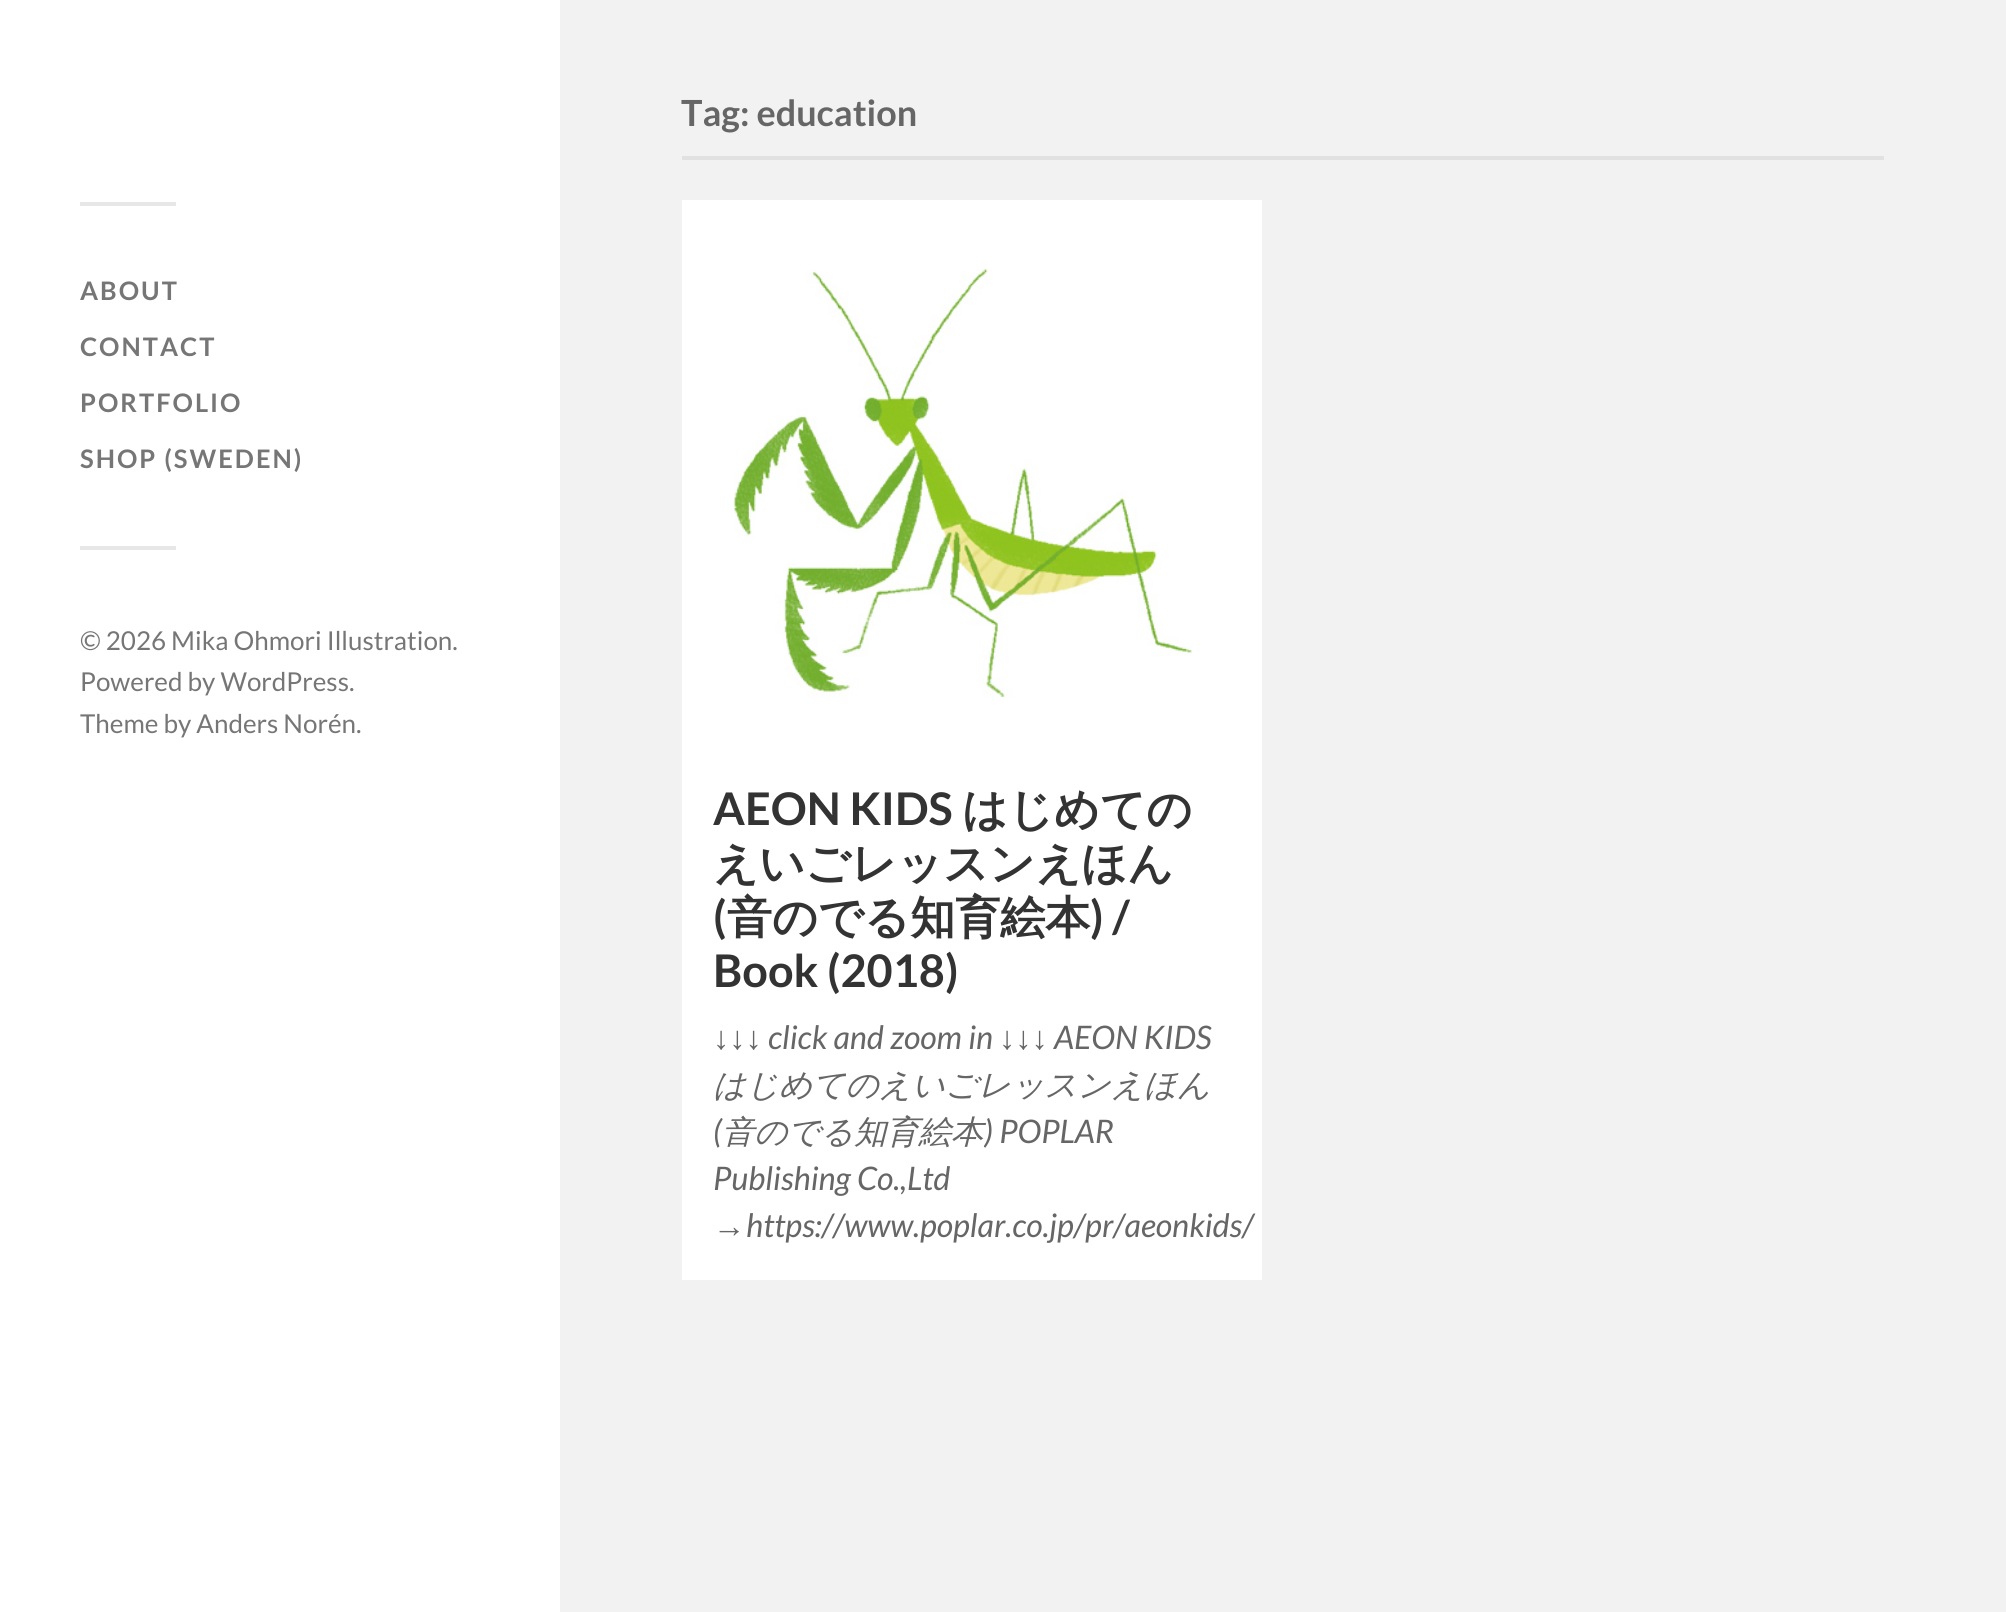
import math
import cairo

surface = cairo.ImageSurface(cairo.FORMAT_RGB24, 2006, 1612)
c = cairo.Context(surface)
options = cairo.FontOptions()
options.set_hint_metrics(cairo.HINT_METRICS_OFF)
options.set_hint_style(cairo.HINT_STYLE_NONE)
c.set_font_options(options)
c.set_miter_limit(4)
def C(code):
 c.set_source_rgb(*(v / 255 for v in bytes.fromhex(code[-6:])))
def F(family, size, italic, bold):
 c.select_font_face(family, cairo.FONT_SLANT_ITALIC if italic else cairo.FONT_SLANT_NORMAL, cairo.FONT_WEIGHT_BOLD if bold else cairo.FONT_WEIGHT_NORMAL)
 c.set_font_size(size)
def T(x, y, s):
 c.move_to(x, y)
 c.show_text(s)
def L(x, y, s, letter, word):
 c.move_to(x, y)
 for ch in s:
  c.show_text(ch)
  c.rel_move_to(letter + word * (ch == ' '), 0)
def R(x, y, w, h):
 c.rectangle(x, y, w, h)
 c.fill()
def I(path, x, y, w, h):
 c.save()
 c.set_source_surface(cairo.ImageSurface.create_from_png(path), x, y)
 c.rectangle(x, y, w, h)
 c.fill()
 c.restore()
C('f2f2f2')
c.paint()
C('ffffff')
R(0,0,560,1612)
C('e7e7e7')
R(80,202,96,4)
F('Lato',25.5,0,1)
C('767676')
L(80,300,'ABOUT',2,0)
L(80,356,'CONTACT',2,0)
L(80,412,'PORTFOLIO',2,0)
L(80,468,'SHOP (SWEDEN)',2,0)
C('e7e7e7')
R(80,546,96,4)
F('Lato',26,0,0)
C('767676')
T(80,650,'© 2026 Mika Ohmori Illustration.')
T(80,691,'Powered by WordPress.')
T(80,733,'Theme by Anders Norén.')
C('e1e1e1')
R(682,156,1202,4)
F('Lato',36,0,1)
C('666666')
T(681,126,'Tag: education')
C('ffffff')
R(682,200,580,1080)
I('1.png',734,269,458,429)
F('Lato',45,0,1)
C('333333')
T(713,825,'AEON KIDS')
F('WenQuanYi Zen Hei',45,0,1)
T(962,825,'はじめての')
T(713,879,'えいごレッスンえほん')
F('Lato',45,0,1)
T(713,933,'(')
F('WenQuanYi Zen Hei',45,0,1)
T(727,933,'音のでる知育絵本')
F('Lato',45,0,1)
T(1090,933,') /')
T(713,987,'Book (2018)')
F('Liberation Sans',32.4,1,0)
C('666666')
T(713,1049,'↓↓↓')
F('Lato',32.4,1,0)
T(768,1049,'click and zoom in')
F('Liberation Sans',32.4,1,0)
T(999,1049,'↓↓↓')
F('Lato',32.4,1,0)
T(1054,1049,'AEON KIDS')
F('WenQuanYi Zen Hei Medium',32.4,1,0)
T(713,1096,'はじめてのえいごレッスンえほん')
F('Lato',32.4,1,0)
T(713,1143,'(')
F('WenQuanYi Zen Hei Medium',32.4,1,0)
T(722,1143,'音のでる知育絵本')
F('Lato',32.4,1,0)
T(984,1143,') POPLAR')
T(713,1190,'Publishing Co.,Ltd')
F('Liberation Sans',32.4,1,0)
T(713,1237,'→')
F('Lato',32.4,1,0)
T(746,1237,'https://www.poplar.co.jp/pr/aeonkids/')
surface.write_to_png('o.png')
